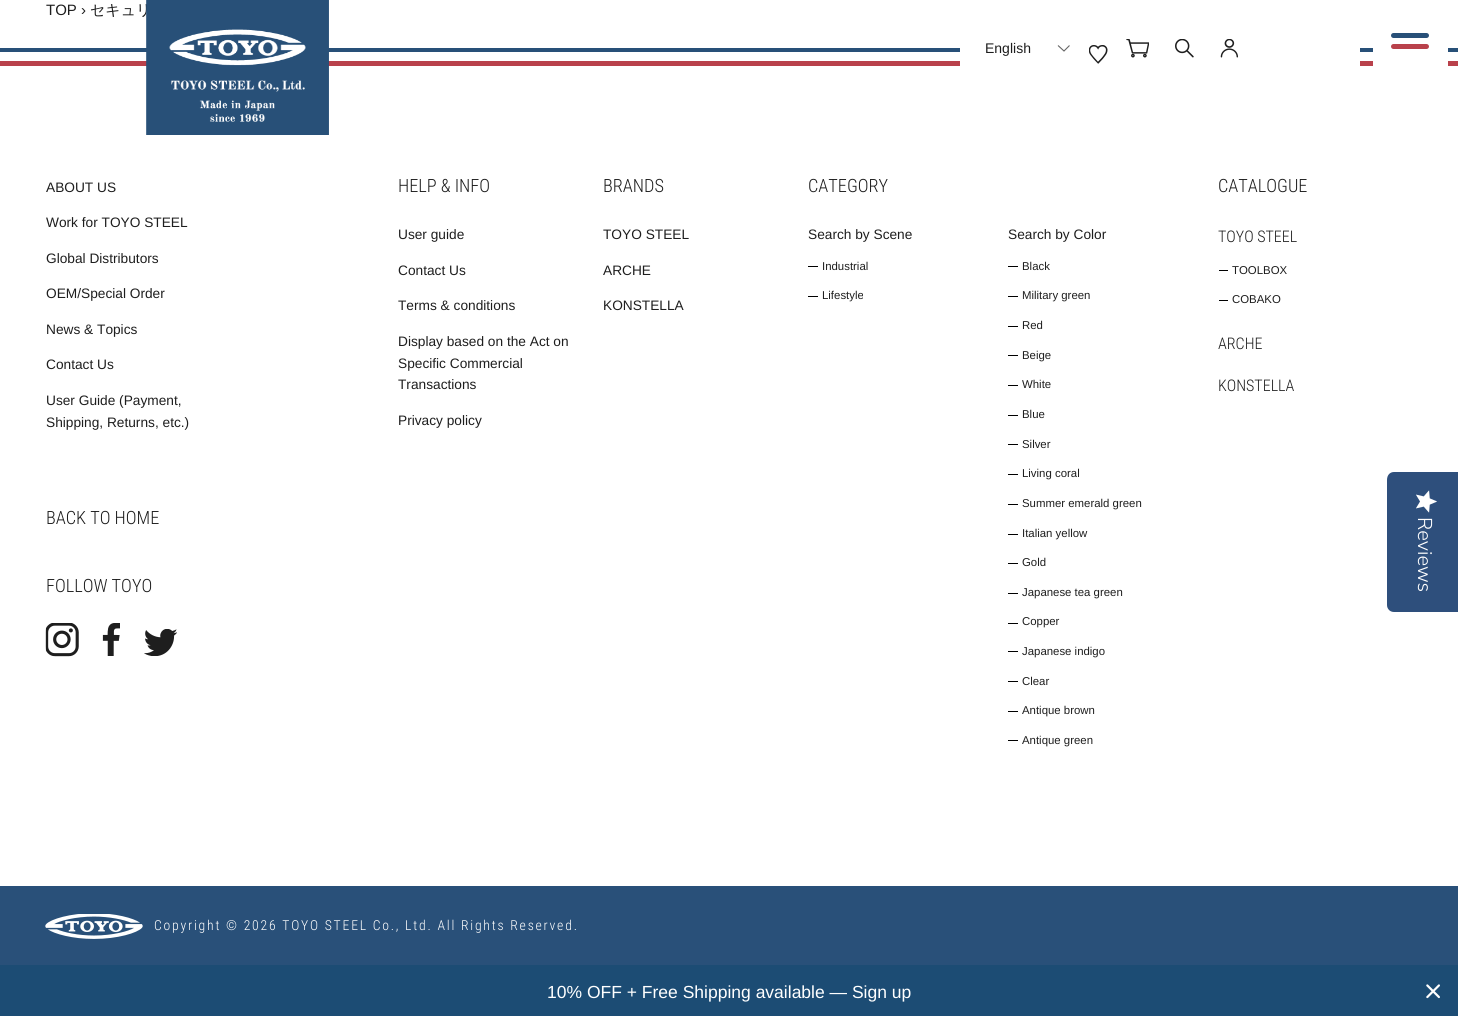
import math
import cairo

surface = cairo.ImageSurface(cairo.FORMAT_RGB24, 1458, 1016)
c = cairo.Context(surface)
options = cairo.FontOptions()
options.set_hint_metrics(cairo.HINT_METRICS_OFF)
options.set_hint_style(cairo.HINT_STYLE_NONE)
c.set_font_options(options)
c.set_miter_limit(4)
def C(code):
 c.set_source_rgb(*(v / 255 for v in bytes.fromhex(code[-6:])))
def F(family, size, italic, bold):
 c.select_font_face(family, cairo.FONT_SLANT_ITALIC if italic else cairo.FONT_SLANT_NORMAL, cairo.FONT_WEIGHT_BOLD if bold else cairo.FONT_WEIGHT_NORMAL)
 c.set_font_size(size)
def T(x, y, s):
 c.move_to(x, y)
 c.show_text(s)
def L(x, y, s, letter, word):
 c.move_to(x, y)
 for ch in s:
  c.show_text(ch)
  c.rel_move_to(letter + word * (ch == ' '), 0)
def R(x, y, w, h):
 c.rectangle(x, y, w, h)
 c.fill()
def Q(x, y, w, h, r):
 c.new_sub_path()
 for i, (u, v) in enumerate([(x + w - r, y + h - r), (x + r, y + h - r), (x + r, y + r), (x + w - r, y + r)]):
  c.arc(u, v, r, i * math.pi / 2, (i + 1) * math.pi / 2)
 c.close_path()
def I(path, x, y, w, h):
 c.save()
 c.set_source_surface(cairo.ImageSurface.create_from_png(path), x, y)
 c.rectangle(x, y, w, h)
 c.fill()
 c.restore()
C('ffffff')
c.paint()
F('Liberation Sans',15,0,0)
C('1e1e1e')
T(46,15,'TOP ›')
F('WenQuanYi Zen Hei Medium',15,0,0)
T(90,15,'セキュリ')
C('285078')
R(0,48,1458,4)
C('b9414b')
R(0,61,1458,5)
F('Liberation Sans',13.7,0,0)
C('1e1e1e')
T(46,192,'ABOUT US')
T(46,227,'Work for TOYO STEEL')
T(46,263,'Global Distributors')
T(46,298,'OEM/Special Order')
T(46,334,'News & Topics')
T(46,369,'Contact Us')
T(46,405,'User Guide (Payment,')
T(46,427,'Shipping, Returns, etc.)')
F('Roboto Condensed Light',18.25,0,0)
T(46,524,'BACK TO HOME')
T(46,592,'FOLLOW TOYO')
I('1.png',45,623,34,34)
I('2.png',102,623,18,33)
I('3.png',144,629,33,27)
T(398,192,'HELP & INFO')
F('Liberation Sans',13.7,0,0)
T(398,239,'User guide')
T(398,275,'Contact Us')
T(398,310,'Terms & conditions')
T(398,346,'Display based on the Act on')
T(398,368,'Specific Commercial')
T(398,389,'Transactions')
T(398,425,'Privacy policy')
F('Roboto Condensed Light',18.25,0,0)
T(603,192,'BRANDS')
F('Liberation Sans',13.7,0,0)
T(603,239,'TOYO STEEL')
T(603,275,'ARCHE')
T(603,310,'KONSTELLA')
F('Roboto Condensed Light',18.25,0,0)
T(808,192,'CATEGORY')
F('Liberation Sans',13.7,0,0)
T(808,239,'Search by Scene')
C('000000')
R(808,266,10,1)
F('Liberation Sans',11.4,0,0)
C('1e1e1e')
T(822,270,'Industrial')
C('000000')
R(808,296,10,1)
C('1e1e1e')
T(822,299,'Lifestyle')
F('Liberation Sans',13.7,0,0)
T(1008,239,'Search by Color')
C('000000')
R(1008,266,10,1)
F('Liberation Sans',11.4,0,0)
C('1e1e1e')
T(1022,270,'Black')
C('000000')
R(1008,296,10,1)
C('1e1e1e')
T(1022,299,'Military green')
C('000000')
R(1008,326,10,1)
C('1e1e1e')
T(1022,329,'Red')
C('000000')
R(1008,355,10,1)
C('1e1e1e')
T(1022,359,'Beige')
C('000000')
R(1008,385,10,1)
C('1e1e1e')
T(1022,388,'White')
C('000000')
R(1008,415,10,1)
C('1e1e1e')
T(1022,418,'Blue')
C('000000')
R(1008,444,10,1)
C('1e1e1e')
T(1022,448,'Silver')
C('000000')
R(1008,474,10,1)
C('1e1e1e')
T(1022,477,'Living coral')
C('000000')
R(1008,504,10,1)
C('1e1e1e')
T(1022,507,'Summer emerald green')
C('000000')
R(1008,534,10,1)
C('1e1e1e')
T(1022,537,'Italian yellow')
C('000000')
R(1008,563,10,1)
C('1e1e1e')
T(1022,566,'Gold')
C('000000')
R(1008,593,10,1)
C('1e1e1e')
T(1022,596,'Japanese tea green')
C('000000')
R(1008,623,10,1)
C('1e1e1e')
T(1022,625,'Copper')
C('000000')
R(1008,651,10,1)
C('1e1e1e')
T(1022,655,'Japanese indigo')
C('000000')
R(1008,681,10,1)
C('1e1e1e')
T(1022,685,'Clear')
C('000000')
R(1008,711,10,1)
C('1e1e1e')
T(1022,714,'Antique brown')
C('000000')
R(1008,740,10,1)
C('1e1e1e')
T(1022,744,'Antique green')
F('Roboto Condensed Light',18.25,0,0)
T(1218,192,'CATALOGUE')
F('Roboto Condensed Light',16,0,0)
T(1218,242,'TOYO STEEL')
C('000000')
R(1219,270,9,1)
F('Liberation Sans',11.4,0,0)
C('1e1e1e')
T(1232,274,'TOOLBOX')
C('000000')
R(1219,300,9,1)
C('1e1e1e')
T(1232,303,'COBAKO')
F('Roboto Condensed Light',16,0,0)
T(1218,349,'ARCHE')
T(1218,391,'KONSTELLA')
C('295079')
R(0,886,1458,79)
I('4.png',45,914,98,25)
F('Roboto Condensed Light',13.7,0,0)
C('ffffff')
L(154,930,'Copyright © 2026 TOYO STEEL Co., Ltd. All Rights Reserved.',1.78,0)
I('5.png',146,0,183,135)
R(960,48,400,18)
c.new_path()
c.move_to(1069.5,45.5)
c.line_to(1064,51)
c.line_to(1058,45.5)
C('646464')
c.set_line_width(1.1)
c.stroke()
F('Liberation Sans',14,0,0)
C('1e1e1e')
T(985,53,'English')
I('6.png',1089,45,19,19)
I('7.png',1126,39,23,19)
I('8.png',1175,39,19,19)
I('9.png',1220,39,18,19)
C('ffffff')
R(1373,48,75,18)
C('285078')
Q(1391,33,38,5,2.5)
c.fill()
C('b9414b')
Q(1391,44,38,5,2.5)
c.fill()
C('2e4f7c')
c.new_path()
c.move_to(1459,472)
c.line_to(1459,612)
c.line_to(1394,612)
c.curve_to(1390,612,1387,609,1387,605)
c.line_to(1387,480)
c.curve_to(1387,475,1390,472,1394,472)
c.close_path()
c.fill()
I('10.png',1416,490,21,23)
F('Nunito Sans Light',20,0,0)
C('ffffff')
c.save()
c.translate(1418,517)
c.rotate(90 * math.pi / 180)
T(0,0,'Reviews')
c.restore()
C('1c4c74')
R(0,965,1458,51)
F('Liberation Sans',17.5,0,0)
C('ffffff')
T(547,998,'10% OFF + Free Shipping available — Sign up')
I('11.png',1426,984,14,15)
surface.write_to_png('o.png')
